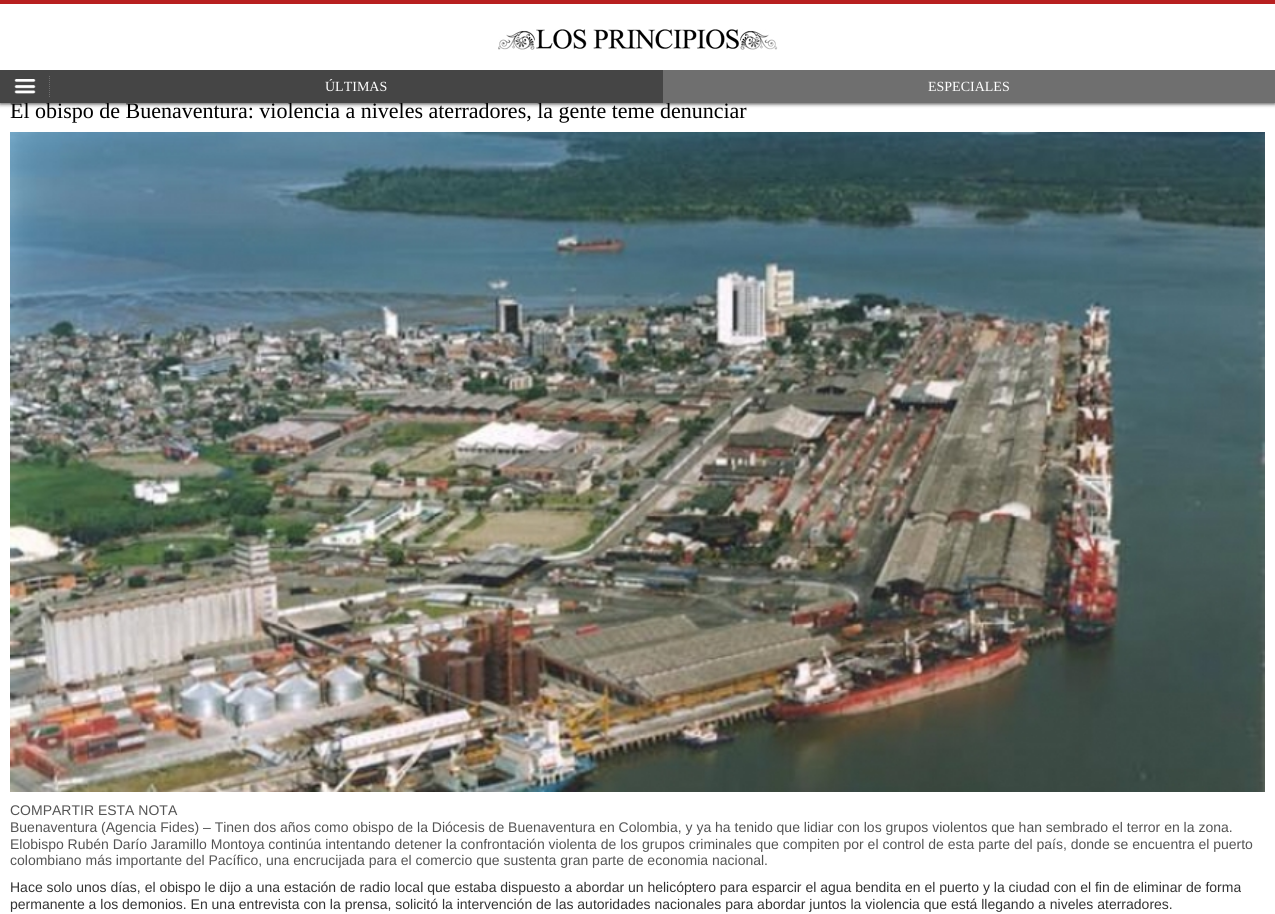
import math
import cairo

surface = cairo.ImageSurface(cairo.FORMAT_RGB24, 1275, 914)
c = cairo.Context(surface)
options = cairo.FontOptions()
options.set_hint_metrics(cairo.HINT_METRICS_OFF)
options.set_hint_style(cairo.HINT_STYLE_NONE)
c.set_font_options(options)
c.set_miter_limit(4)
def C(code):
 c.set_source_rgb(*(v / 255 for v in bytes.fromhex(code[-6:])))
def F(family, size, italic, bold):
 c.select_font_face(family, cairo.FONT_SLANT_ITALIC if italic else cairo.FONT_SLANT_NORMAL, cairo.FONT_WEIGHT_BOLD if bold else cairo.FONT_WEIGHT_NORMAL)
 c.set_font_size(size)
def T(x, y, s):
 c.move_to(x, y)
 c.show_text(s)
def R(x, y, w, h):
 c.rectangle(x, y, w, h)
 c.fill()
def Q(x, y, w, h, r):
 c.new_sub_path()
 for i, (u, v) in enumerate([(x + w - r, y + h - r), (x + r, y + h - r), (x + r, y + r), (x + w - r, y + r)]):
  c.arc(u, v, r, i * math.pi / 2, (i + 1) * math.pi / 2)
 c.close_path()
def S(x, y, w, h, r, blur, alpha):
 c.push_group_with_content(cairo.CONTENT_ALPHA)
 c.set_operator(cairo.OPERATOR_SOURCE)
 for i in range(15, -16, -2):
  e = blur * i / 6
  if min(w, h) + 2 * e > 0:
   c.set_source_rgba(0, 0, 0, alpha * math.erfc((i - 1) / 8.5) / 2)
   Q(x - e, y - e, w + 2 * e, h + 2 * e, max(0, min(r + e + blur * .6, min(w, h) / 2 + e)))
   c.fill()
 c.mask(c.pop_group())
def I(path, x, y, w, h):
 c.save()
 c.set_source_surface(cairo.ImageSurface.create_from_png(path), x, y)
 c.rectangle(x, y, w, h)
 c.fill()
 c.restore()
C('ffffff')
c.paint()
C('000000')
S(0,1,1275,103,0,2,.7)
C('ffffff')
R(0,4,1275,66)
C('b82020')
R(0,0,1275,4)
I('1.png',498,29,280,21)
F('Liberation Serif',22,0,0)
C('000000')
T(10,118,'El obispo de Buenaventura: violencia a niveles aterradores, la gente teme denunciar')
C('6f6f6f')
R(663,70,612,33)
C('454545')
R(0,70,663,33)
I('2.png',14,79,22,15)
c.new_path()
c.move_to(49.5,76)
c.line_to(49.5,97)
C('6f6f6f')
c.set_line_width(1)
c.set_dash([1,1])
c.stroke()
F('Liberation Serif',14,0,0)
C('ffffff')
T(325,91,'ÚLTIMAS')
T(928,91,'ESPECIALES')
I('3.png',10,132,1255,660)
F('Liberation Sans',14,0,0)
C('545454')
T(10,815,'COMPARTIR ESTA NOTA')
T(10,832,'Buenaventura (Agencia Fides) – Tinen dos años como obispo de la Diócesis de Buenaventura en Colombia, y ya ha tenido que lidiar con los grupos violentos que han sembrado el terror en la zona.')
T(10,849,'Elobispo Rubén Darío Jaramillo Montoya continúa intentando detener la confrontación violenta de los grupos criminales que compiten por el control de esta parte del país, donde se encuentra el puerto')
T(10,865,'colombiano más importante del Pacífico, una encrucijada para el comercio que sustenta gran parte de economia nacional.')
C('333333')
T(10,892,'Hace solo unos días, el obispo le dijo a una estación de radio local que estaba dispuesto a abordar un helicóptero para esparcir el agua bendita en el puerto y la ciudad con el fin de eliminar de forma')
T(10,909,'permanente a los demonios. En una entrevista con la prensa, solicitó la intervención de las autoridades nacionales para abordar juntos la violencia que está llegando a niveles aterradores.')
surface.write_to_png('o.png')
